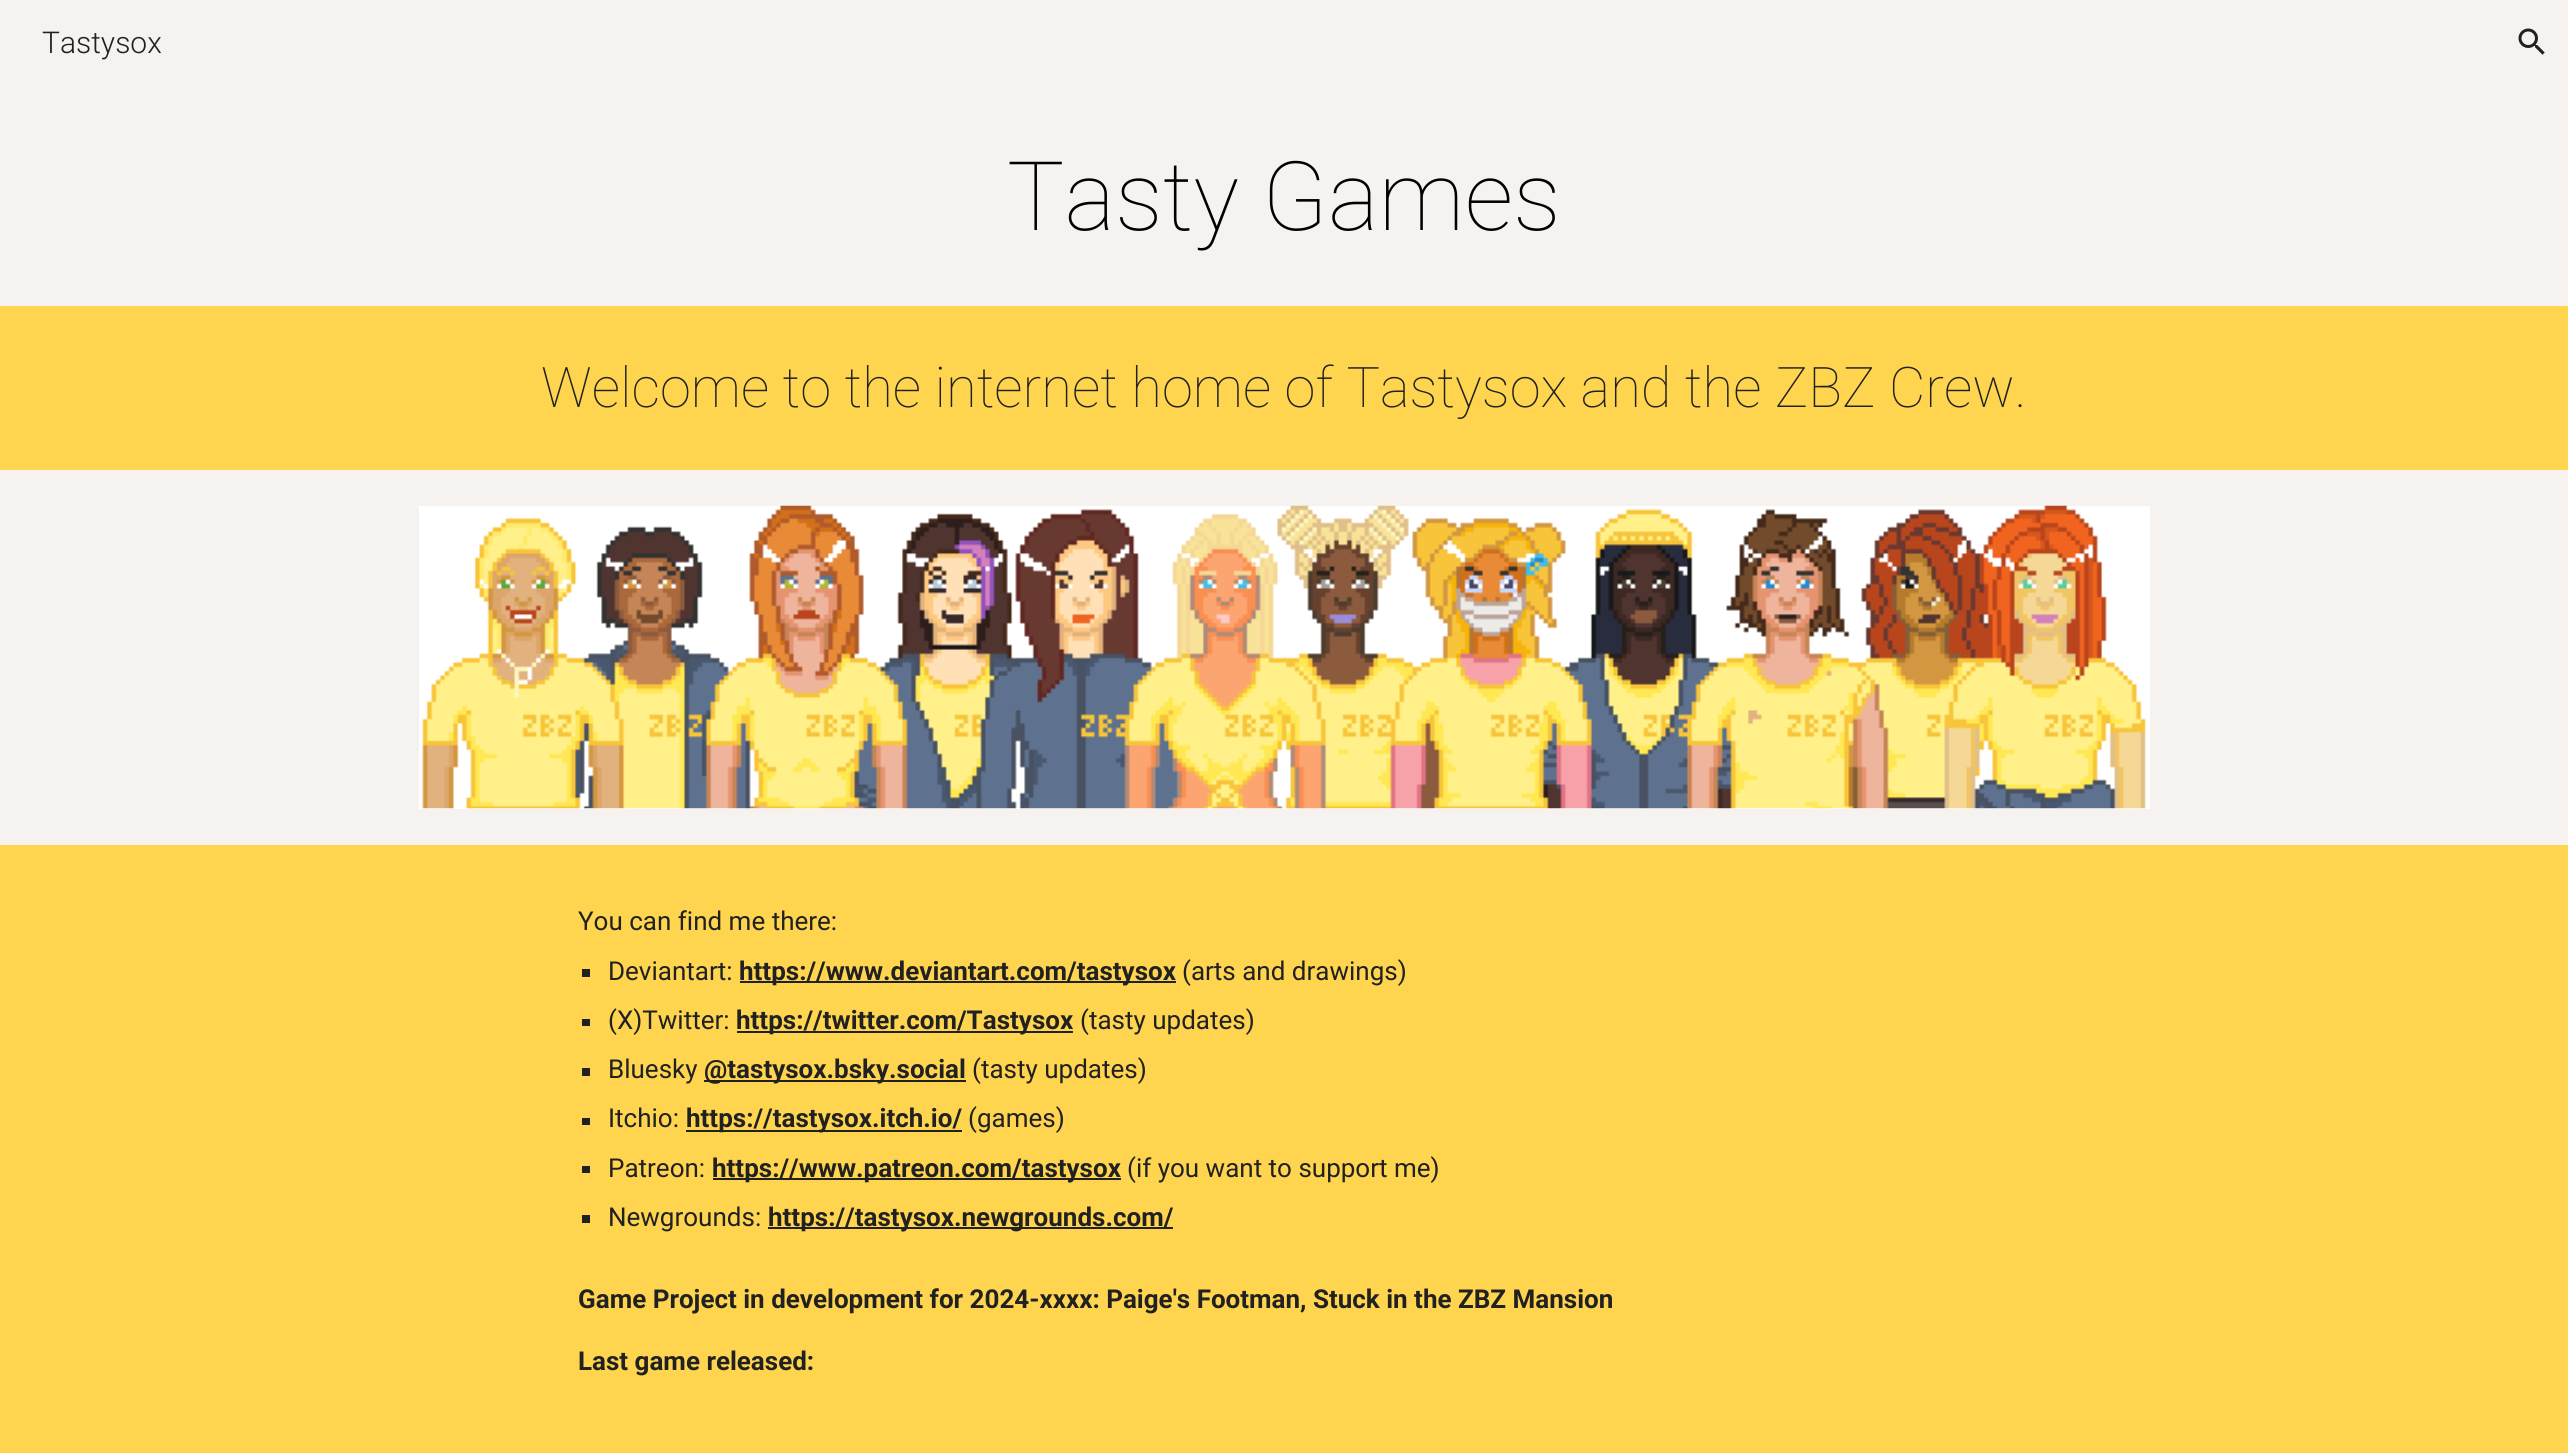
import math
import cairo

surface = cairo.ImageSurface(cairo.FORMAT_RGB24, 2568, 1453)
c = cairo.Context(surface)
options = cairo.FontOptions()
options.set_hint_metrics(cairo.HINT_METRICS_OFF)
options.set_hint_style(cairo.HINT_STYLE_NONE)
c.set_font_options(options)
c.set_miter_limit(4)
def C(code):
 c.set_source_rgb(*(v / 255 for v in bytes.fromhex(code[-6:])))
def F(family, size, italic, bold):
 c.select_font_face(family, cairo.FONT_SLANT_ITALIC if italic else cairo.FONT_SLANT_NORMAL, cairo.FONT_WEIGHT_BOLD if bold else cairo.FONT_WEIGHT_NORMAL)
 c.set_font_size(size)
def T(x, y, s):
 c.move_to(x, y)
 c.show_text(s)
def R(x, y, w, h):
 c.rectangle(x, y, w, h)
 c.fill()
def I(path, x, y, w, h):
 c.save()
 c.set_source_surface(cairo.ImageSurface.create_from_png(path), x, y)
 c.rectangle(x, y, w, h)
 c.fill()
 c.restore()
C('f5f2f0')
c.paint()
F('Roboto Light',30,0,0)
C('212121')
T(42,53,'Tastysox')
I('1.png',2518,28,27,27)
F('Roboto Thin',96,0,0)
C('000000')
T(1007,230,'Tasty Games')
C('ffd54f')
R(0,306,2568,164)
F('Roboto Thin',56,0,0)
C('212121')
T(541,407,'Welcome to the internet home of Tastysox and the ZBZ Crew.')
C('ffffff')
R(419,506,1731,303)
I('2.png',422,505,1724,304)
C('ffd54f')
R(0,845,2568,608)
F('Roboto',26,0,0)
C('212121')
T(578,930,'You can find me there:')
R(582,969,8,8)
T(608,980,'Deviantart:')
R(740,981,436,2)
F('Roboto',26,0,1)
T(739,980,'https://www.deviantart.com/tastysox')
F('Roboto',26,0,0)
T(1182,980,'(arts and drawings)')
R(582,1019,8,7)
T(608,1029,'(X)Twitter:')
R(737,1031,336,2)
F('Roboto',26,0,1)
T(736,1029,'https://twitter.com/Tastysox')
F('Roboto',26,0,0)
T(1080,1029,'(tasty updates)')
R(582,1068,8,8)
T(608,1078,'Bluesky')
R(704,1080,262,2)
F('Roboto',26,0,1)
T(704,1078,'@tastysox.bsky.social')
F('Roboto',26,0,0)
T(972,1078,'(tasty updates)')
R(582,1118,8,7)
T(608,1127,'Itchio:')
R(686,1130,276,2)
F('Roboto',26,0,1)
T(686,1127,'https://tastysox.itch.io/')
F('Roboto',26,0,0)
T(968,1127,'(games)')
R(582,1166,8,7)
T(608,1177,'Patreon:')
R(713,1178,408,2)
F('Roboto',26,0,1)
T(712,1177,'https://www.patreon.com/tastysox')
F('Roboto',26,0,0)
T(1127,1177,'(if you want to support me)')
R(582,1215,8,8)
T(608,1226,'Newgrounds:')
R(768,1227,405,2)
F('Roboto',26,0,1)
T(768,1226,'https://tastysox.newgrounds.com/')
T(578,1308,'Game Project in development for 2024-xxxx: Paige\'s Footman, Stuck in the ZBZ Mansion')
T(578,1370,'Last game released:')
surface.write_to_png('o.png')
